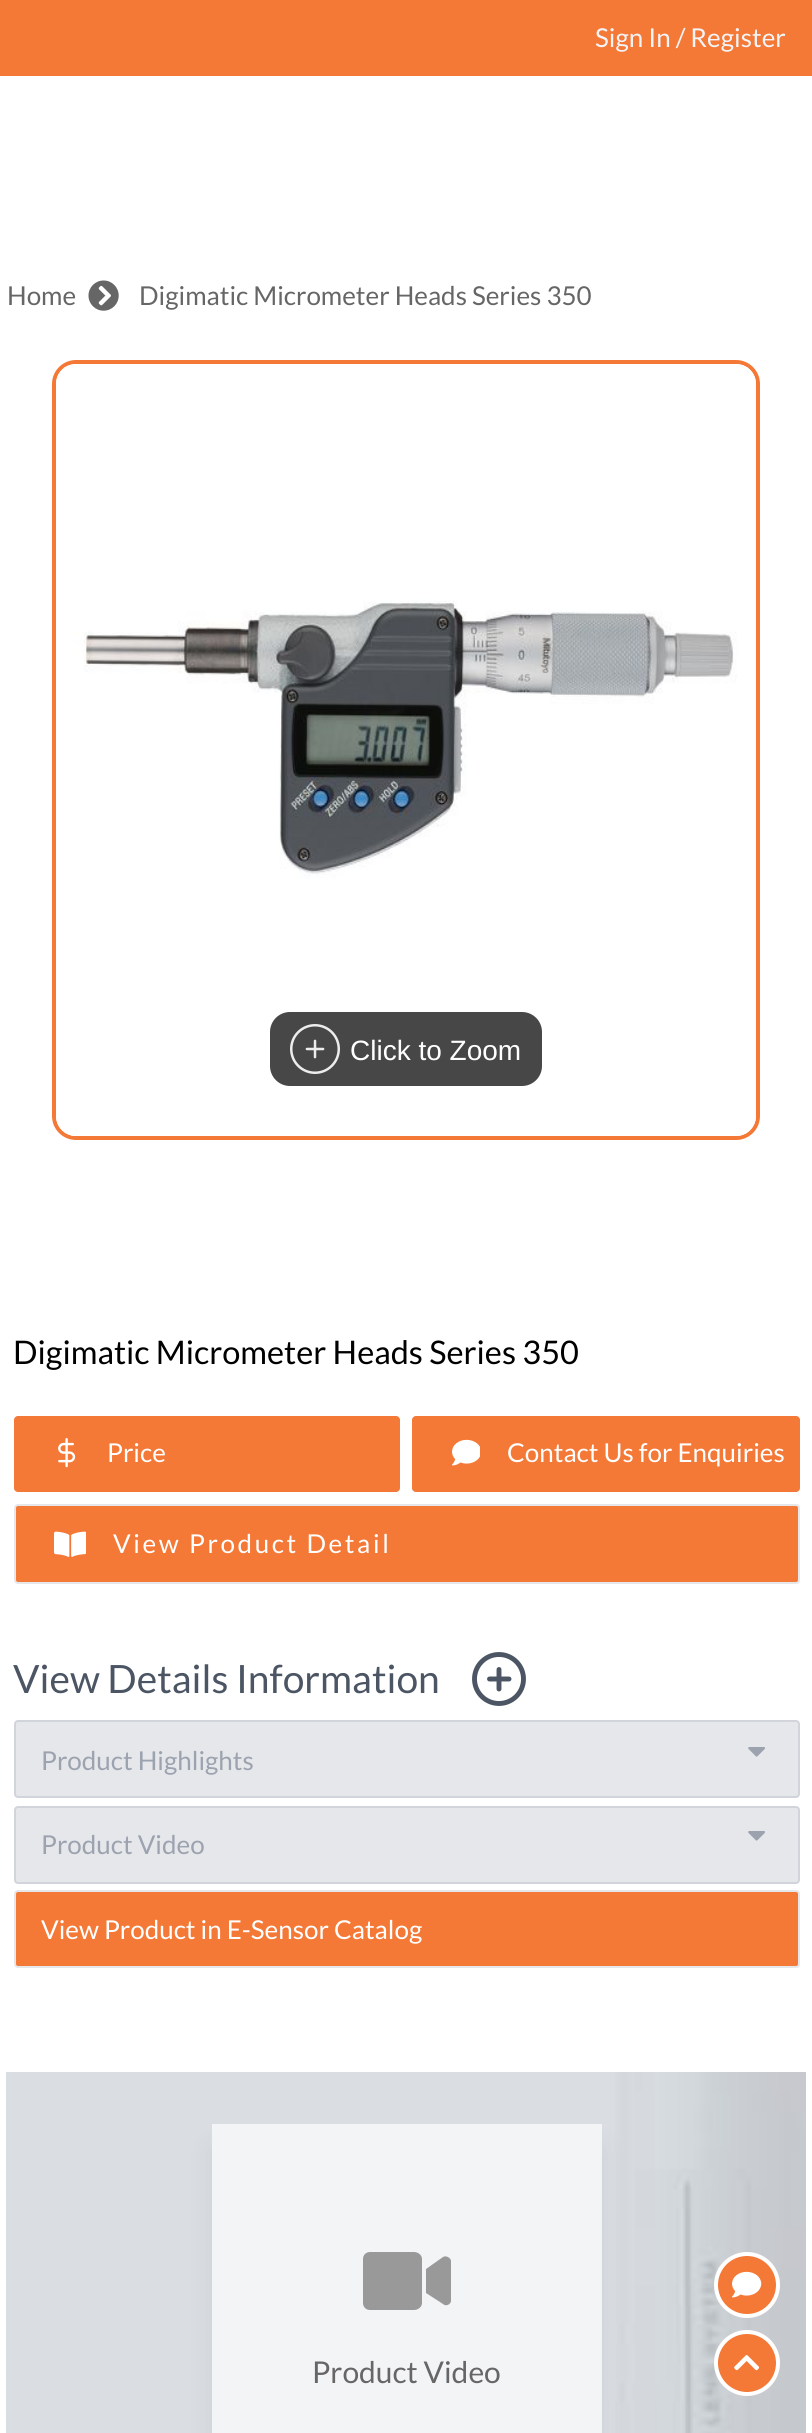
import math
import cairo

surface = cairo.ImageSurface(cairo.FORMAT_RGB24, 812, 2433)
c = cairo.Context(surface)
options = cairo.FontOptions()
options.set_hint_metrics(cairo.HINT_METRICS_OFF)
options.set_hint_style(cairo.HINT_STYLE_NONE)
c.set_font_options(options)
c.set_miter_limit(4)
def C(code):
 c.set_source_rgb(*(v / 255 for v in bytes.fromhex(code[-6:])))
def F(family, size, italic, bold):
 c.select_font_face(family, cairo.FONT_SLANT_ITALIC if italic else cairo.FONT_SLANT_NORMAL, cairo.FONT_WEIGHT_BOLD if bold else cairo.FONT_WEIGHT_NORMAL)
 c.set_font_size(size)
def T(x, y, s):
 c.move_to(x, y)
 c.show_text(s)
def L(x, y, s, letter, word):
 c.move_to(x, y)
 for ch in s:
  c.show_text(ch)
  c.rel_move_to(letter + word * (ch == ' '), 0)
def R(x, y, w, h):
 c.rectangle(x, y, w, h)
 c.fill()
def Q(x, y, w, h, r):
 c.new_sub_path()
 for i, (u, v) in enumerate([(x + w - r, y + h - r), (x + r, y + h - r), (x + r, y + r), (x + w - r, y + r)]):
  c.arc(u, v, r, i * math.pi / 2, (i + 1) * math.pi / 2)
 c.close_path()
def S(x, y, w, h, r, blur, alpha):
 c.push_group_with_content(cairo.CONTENT_ALPHA)
 c.set_operator(cairo.OPERATOR_SOURCE)
 for i in range(15, -16, -2):
  e = blur * i / 6
  if min(w, h) + 2 * e > 0:
   c.set_source_rgba(0, 0, 0, alpha * math.erfc((i - 1) / 8.5) / 2)
   Q(x - e, y - e, w + 2 * e, h + 2 * e, max(0, min(r + e + blur * .6, min(w, h) / 2 + e)))
   c.fill()
 c.mask(c.pop_group())
def I(path, x, y, w, h):
 c.save()
 c.set_source_surface(cairo.ImageSurface.create_from_png(path), x, y)
 c.rectangle(x, y, w, h)
 c.fill()
 c.restore()
C('ffffff')
c.paint()
C('dadde2')
R(6,2072,608,361)
C('f47836')
R(0,0,812,76)
F('Lato',26,0,0)
C('f3f4f6')
T(595,47,'Sign In / Register')
C('666666')
T(7,305,'Home')
I('1.png',88,280,31,31)
T(139,305,'Digimatic Micrometer Heads Series 350')
Q(54,362,704,776,22)
C('f47836')
c.set_line_width(4)
c.stroke()
I('2.png',56,364,700,772)
C('474747')
Q(270,1012,272,74,20)
c.fill()
I('3.png',290,1024,50,50)
F('Liberation Sans',28,0,0)
C('ffffff')
T(350,1060,'Click to Zoom')
F('Lato',32.5,0,0)
C('000000')
T(13,1364,'Digimatic Micrometer Heads Series 350')
C('f47836')
Q(14,1416,386,76,4)
c.fill()
I('4.png',58,1438,18,30)
F('Lato',26,0,0)
C('ffffff')
T(107,1462,'Price')
C('f47836')
Q(412,1416,388,76,4)
c.fill()
I('5.png',452,1439,28,27)
C('ffffff')
T(507,1462,'Contact Us for Enquiries')
C('f47836')
Q(15,1505,784,78,3)
c.fill_preserve()
C('e5e7eb')
c.set_line_width(2)
c.stroke()
I('6.png',54,1531,32,26)
C('ffffff')
L(113,1553,'View Product Detail',2.6,0)
F('Lato',39,0,0)
C('4b5563')
T(13,1693,'View Details Information')
c.new_path()
c.arc(499,1679,24.5,0,2 * math.pi)
c.set_line_width(4.9)
c.stroke()
c.new_path()
c.move_to(499,1669.5)
c.line_to(499,1689)
c.move_to(489.5,1679)
c.line_to(509,1679)
c.set_line_cap(cairo.LINE_CAP_ROUND)
c.set_line_join(cairo.LINE_JOIN_ROUND)
c.stroke()
C('e5e7eb')
Q(15,1721,784,76,3)
c.fill_preserve()
C('d1d5db')
c.set_line_width(2)
c.set_line_cap(cairo.LINE_CAP_BUTT)
c.set_line_join(cairo.LINE_JOIN_MITER)
c.stroke()
F('Lato',26,0,0)
C('9ca3af')
T(41,1770,'Product Highlights')
I('7.png',748,1747,17,10)
C('e5e7eb')
Q(15,1807,784,76,3)
c.fill_preserve()
C('d1d5db')
c.stroke()
C('9ca3af')
T(41,1854,'Product Video')
I('7.png',748,1831,17,10)
C('f47836')
Q(15,1891,784,76,3)
c.fill_preserve()
C('e5e7eb')
c.stroke()
C('ffffff')
T(41,1939,'View Product in E-Sensor Catalog')
I('8.png',614,2072,192,361)
C('000000')
S(218,2150,378,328,0,15,.1)
C('f3f4f6')
R(212,2124,390,309)
C('999999')
c.new_path()
c.move_to(414,2252)
c.line_to(370,2252)
c.curve_to(366,2252,363,2255,363,2259)
c.line_to(363,2303)
c.curve_to(363,2307,366,2310,370,2310)
c.line_to(414,2310)
c.curve_to(418,2310,422,2307,422,2303)
c.line_to(422,2259)
c.curve_to(422,2255,418,2252,414,2252)
c.close_path()
c.move_to(443,2257)
c.line_to(426,2269)
c.line_to(426,2293)
c.line_to(443,2304)
c.curve_to(446,2307,451,2304,451,2301)
c.line_to(451,2261)
c.curve_to(451,2258,446,2255,443,2257)
c.close_path()
c.fill()
F('Lato',30,0,0)
C('666666')
T(312,2383,'Product Video')
C('f47836')
c.new_path()
c.arc(747,2285,31,0,2 * math.pi)
c.fill_preserve()
C('ffffff')
c.set_line_width(4)
c.stroke()
I('9.png',732,2271,30,27)
C('f47836')
c.arc(747,2363,31,0,2 * math.pi)
c.fill_preserve()
C('ffffff')
c.stroke()
I('10.png',734,2355,26,16)
surface.write_to_png('o.png')
